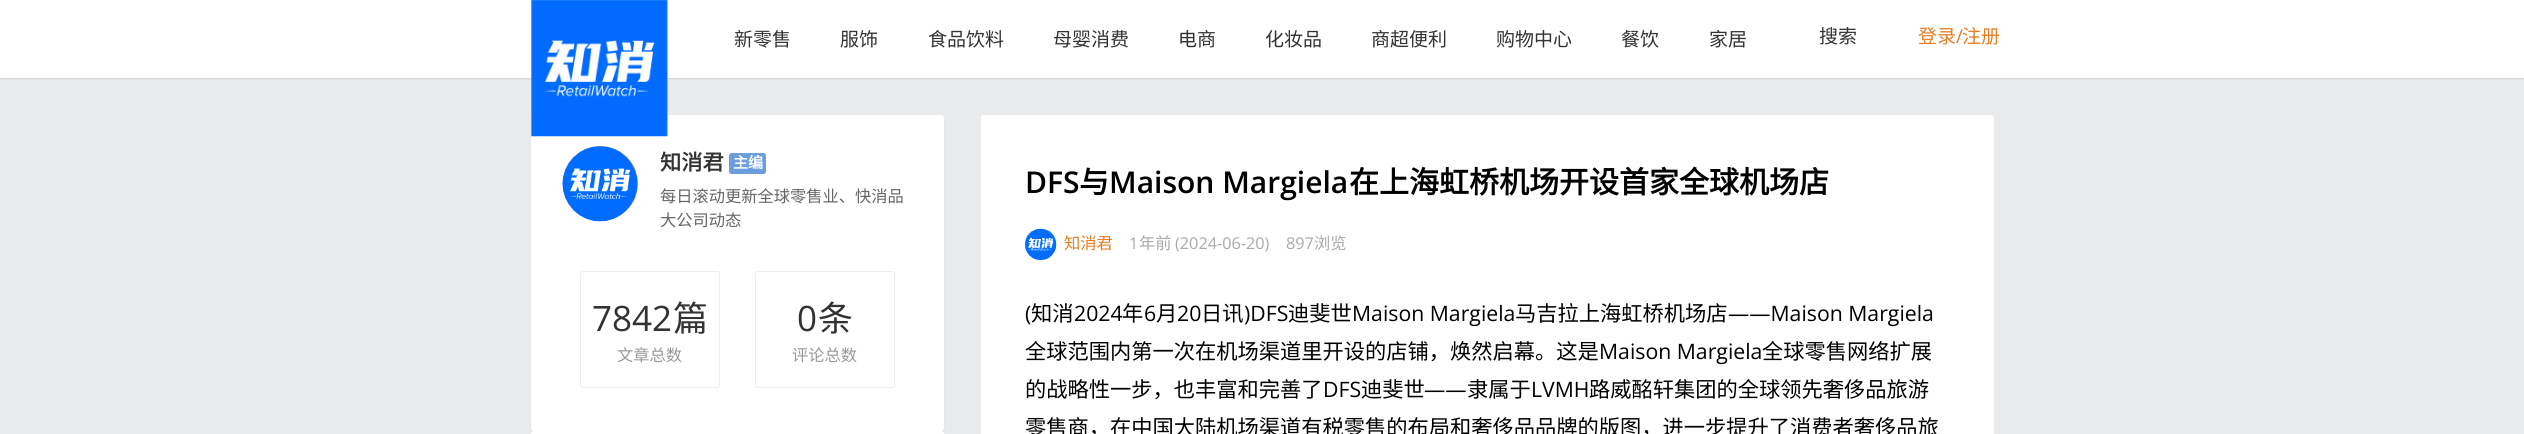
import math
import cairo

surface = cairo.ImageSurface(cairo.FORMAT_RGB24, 2524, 434)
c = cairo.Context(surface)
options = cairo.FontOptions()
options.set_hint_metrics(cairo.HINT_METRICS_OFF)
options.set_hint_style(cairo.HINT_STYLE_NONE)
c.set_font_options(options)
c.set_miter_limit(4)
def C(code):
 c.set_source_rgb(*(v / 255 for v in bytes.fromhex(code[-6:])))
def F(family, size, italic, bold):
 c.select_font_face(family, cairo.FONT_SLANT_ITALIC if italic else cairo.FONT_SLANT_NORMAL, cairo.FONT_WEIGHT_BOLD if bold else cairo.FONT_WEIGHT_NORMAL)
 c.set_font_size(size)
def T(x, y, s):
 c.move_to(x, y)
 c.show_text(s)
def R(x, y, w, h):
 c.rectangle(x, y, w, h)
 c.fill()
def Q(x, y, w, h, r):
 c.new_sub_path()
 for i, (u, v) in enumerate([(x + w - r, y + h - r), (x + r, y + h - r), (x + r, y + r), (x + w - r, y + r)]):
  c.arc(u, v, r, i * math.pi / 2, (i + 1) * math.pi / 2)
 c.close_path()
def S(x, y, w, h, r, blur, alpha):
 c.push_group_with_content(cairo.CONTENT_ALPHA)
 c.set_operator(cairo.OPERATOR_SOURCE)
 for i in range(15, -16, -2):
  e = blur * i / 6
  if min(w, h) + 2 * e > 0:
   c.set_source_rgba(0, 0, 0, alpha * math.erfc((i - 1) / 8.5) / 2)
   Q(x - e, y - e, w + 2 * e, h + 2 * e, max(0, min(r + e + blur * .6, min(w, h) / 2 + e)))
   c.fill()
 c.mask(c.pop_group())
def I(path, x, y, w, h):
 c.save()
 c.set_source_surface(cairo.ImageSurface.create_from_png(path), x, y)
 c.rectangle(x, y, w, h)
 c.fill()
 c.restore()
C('e9eaec')
c.paint()
C('000000')
S(0,1,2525,78,0,.5,.1)
C('ffffff')
R(0,0,2524,78)
C('000000')
S(531,116,413,317,2.5,1,.05)
C('ffffff')
Q(531,115,413,316,2.5)
c.fill()
I('1.png',531,0,137,137)
F('Noto Sans CJK SC',19,0,0)
C('333333')
T(734,46,'新零售')
T(840,46,'服饰')
T(928,46,'食品饮料')
T(1053,46,'母婴消费')
T(1178,46,'电商')
T(1265,46,'化妆品')
T(1371,46,'商超便利')
T(1496,46,'购物中心')
T(1621,46,'餐饮')
T(1709,46,'家居')
T(1819,43,'搜索')
C('e67e22')
T(1918,43,'登录')
F('Open Sans',19,0,0)
T(1956,43,'/')
F('Noto Sans CJK SC',19,0,0)
T(1962,43,'注册')
C('aaaaaa')
c.new_path()
c.arc(600.5,183.5,37.5,0,2 * math.pi)
c.fill()
I('2.png',562,146,76,76)
F('Noto Sans CJK SC',21.25,0,1)
C('333333')
T(660,170,'知消君')
C('6b9edb')
Q(729,153,37,21,2.5)
c.fill()
F('Noto Sans CJK SC',15,0,1)
C('ffffff')
T(733,168,'主编')
F('Noto Sans CJK SC',16.25,0,0)
C('666666')
T(660,202,'每日滚动更新全球零售业、快消品')
T(660,226,'大公司动态')
Q(580.5,271.5,139,116,2)
C('eeeeee')
c.set_line_width(1)
c.stroke()
F('Open Sans',35,0,0)
C('333333')
T(592,331,'7842')
F('Noto Sans CJK SC',35,0,0)
T(673,331,'篇')
F('Noto Sans CJK SC',16.25,0,0)
C('999999')
T(617,361,'文章总数')
Q(755.5,271.5,139,116,2)
C('eeeeee')
c.stroke()
F('Open Sans',35,0,0)
C('333333')
T(797,331,'0')
F('Noto Sans CJK SC',35,0,0)
T(818,331,'条')
F('Noto Sans CJK SC',16.25,0,0)
C('999999')
T(792,361,'评论总数')
C('ffffff')
Q(531,431,413,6,2.5)
c.fill()
Q(981,115,1013,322,2.5)
c.fill()
F('Open Sans SemiBold',30,0,0)
C('000000')
T(1025,193,'DFS')
F('Noto Sans CJK SC',30,0,1)
T(1079,193,'与')
F('Open Sans SemiBold',30,0,0)
T(1109,193,'Maison Margiela')
F('Noto Sans CJK SC',30,0,1)
T(1349,193,'在上海虹桥机场开设首家全球机场店')
I('3.png',1025,228,32,32)
F('Noto Sans CJK SC',16.25,0,0)
C('e67e22')
T(1064,249,'知消君')
F('Open Sans',16.25,0,0)
C('aaaaaa')
T(1129,249,'1')
F('Noto Sans CJK SC',16.25,0,0)
T(1139,249,'年前')
F('Open Sans',16.25,0,0)
T(1175,249,'(2024-06-20)')
T(1286,249,'897')
F('Noto Sans CJK SC',16.25,0,0)
T(1314,249,'浏览')
F('Open Sans',21.25,0,0)
C('000000')
T(1025,321,'(')
F('Noto Sans CJK SC',21.25,0,0)
T(1031,321,'知消')
F('Open Sans',21.25,0,0)
T(1074,321,'2024')
F('Noto Sans CJK SC',21.25,0,0)
T(1122,321,'年')
F('Open Sans',21.25,0,0)
T(1144,321,'6')
F('Noto Sans CJK SC',21.25,0,0)
T(1156,321,'月')
F('Open Sans',21.25,0,0)
T(1177,321,'20')
F('Noto Sans CJK SC',21.25,0,0)
T(1201,321,'日讯')
F('Open Sans',21.25,0,0)
T(1244,321,')DFS')
F('Noto Sans CJK SC',21.25,0,0)
T(1288,321,'迪斐世')
F('Open Sans',21.25,0,0)
T(1352,321,'Maison Margiela')
F('Noto Sans CJK SC',21.25,0,0)
T(1515,321,'马吉拉上海虹桥机场店')
F('Open Sans',21.25,0,0)
T(1728,321,'——Maison Margiela')
F('Noto Sans CJK SC',21.25,0,0)
T(1025,359,'全球范围内第一次在机场渠道里开设的店铺，焕然启幕。这是')
F('Open Sans',21.25,0,0)
T(1599,359,'Maison Margiela')
F('Noto Sans CJK SC',21.25,0,0)
T(1762,359,'全球零售网络扩展')
T(1025,397,'的战略性一步，也丰富和完善了')
F('Open Sans',21.25,0,0)
T(1323,397,'DFS')
F('Noto Sans CJK SC',21.25,0,0)
T(1361,397,'迪斐世')
F('Open Sans',21.25,0,0)
T(1424,397,'——')
F('Noto Sans CJK SC',21.25,0,0)
T(1467,397,'隶属于')
F('Open Sans',21.25,0,0)
T(1531,397,'LVMH')
F('Noto Sans CJK SC',21.25,0,0)
T(1589,397,'路威酩轩集团的全球领先奢侈品旅游')
T(1025,435,'零售商，在中国大陆机场渠道有税零售的布局和奢侈品品牌的版图，进一步提升了消费者奢侈品旅')
surface.write_to_png('o.png')
